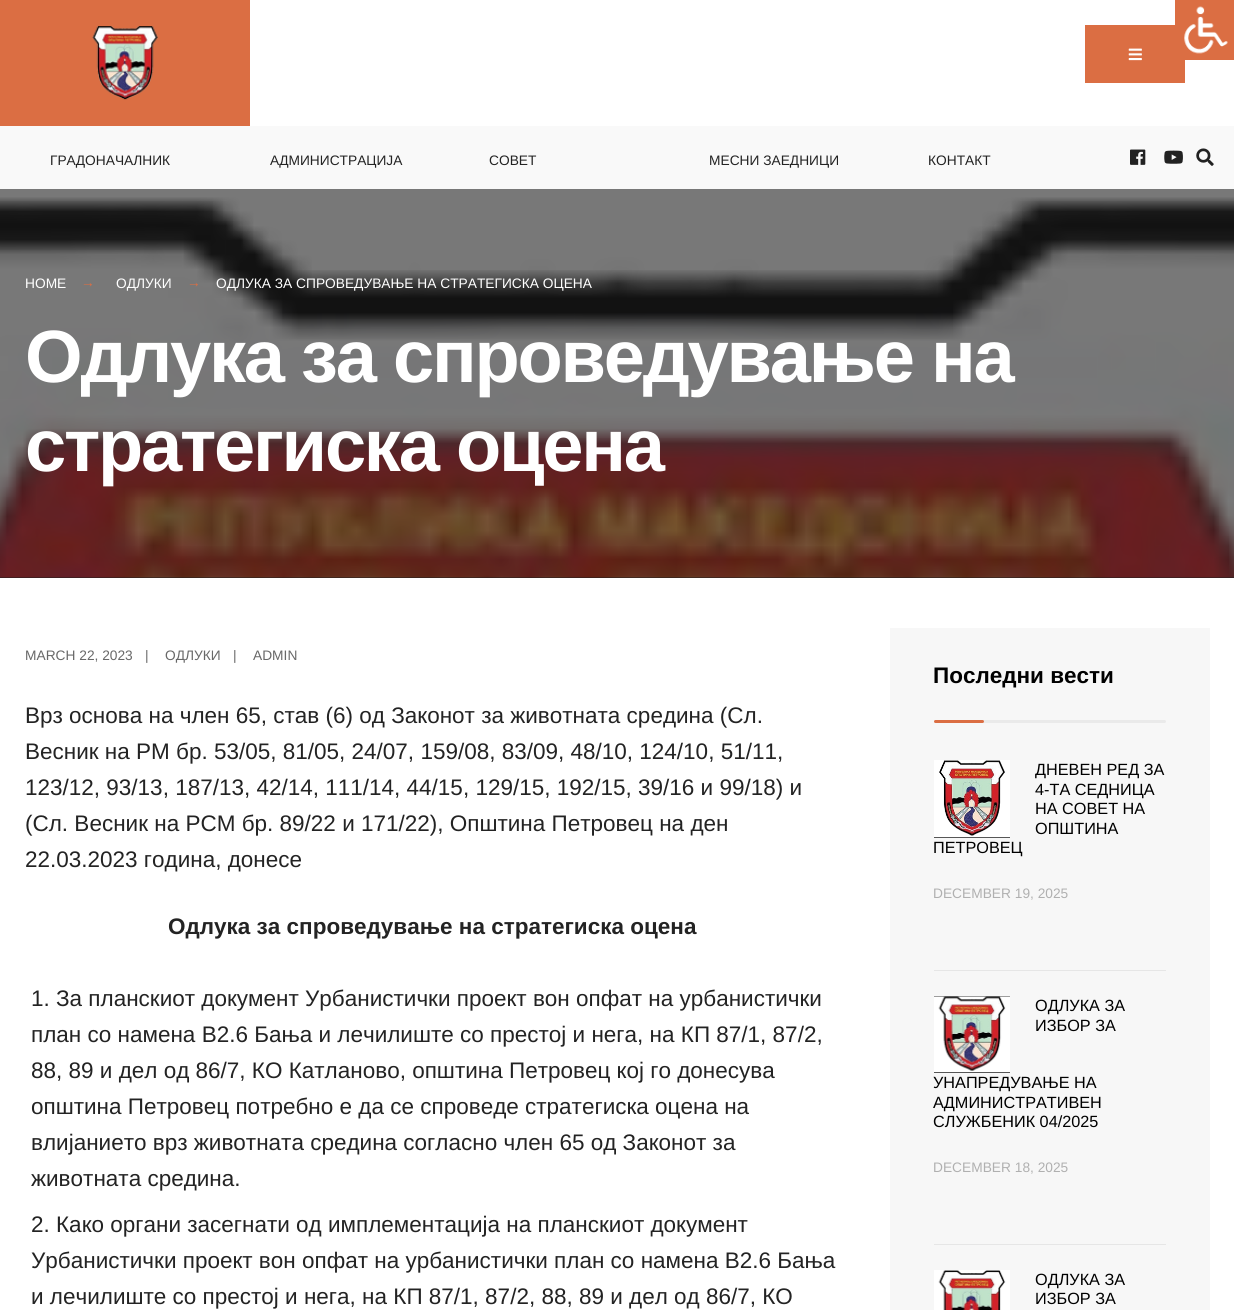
import math
import cairo

surface = cairo.ImageSurface(cairo.FORMAT_RGB24, 1234, 1310)
c = cairo.Context(surface)
options = cairo.FontOptions()
options.set_hint_metrics(cairo.HINT_METRICS_OFF)
options.set_hint_style(cairo.HINT_STYLE_NONE)
c.set_font_options(options)
c.set_miter_limit(4)
def C(code):
 c.set_source_rgb(*(v / 255 for v in bytes.fromhex(code[-6:])))
def F(family, size, italic, bold):
 c.select_font_face(family, cairo.FONT_SLANT_ITALIC if italic else cairo.FONT_SLANT_NORMAL, cairo.FONT_WEIGHT_BOLD if bold else cairo.FONT_WEIGHT_NORMAL)
 c.set_font_size(size)
def T(x, y, s):
 c.move_to(x, y)
 c.show_text(s)
def L(x, y, s, letter, word):
 c.move_to(x, y)
 for ch in s:
  c.show_text(ch)
  c.rel_move_to(letter + word * (ch == ' '), 0)
def R(x, y, w, h):
 c.rectangle(x, y, w, h)
 c.fill()
def Q(x, y, w, h, r):
 c.new_sub_path()
 for i, (u, v) in enumerate([(x + w - r, y + h - r), (x + r, y + h - r), (x + r, y + r), (x + w - r, y + r)]):
  c.arc(u, v, r, i * math.pi / 2, (i + 1) * math.pi / 2)
 c.close_path()
def I(path, x, y, w, h):
 c.save()
 c.set_source_surface(cairo.ImageSurface.create_from_png(path), x, y)
 c.rectangle(x, y, w, h)
 c.fill()
 c.restore()
C('ffffff')
c.paint()
C('db6e43')
R(1085,25,100,58)
C('ffffff')
R(1184,25,1,29)
I('1.png',1175,0,59,60)
C('db6e43')
R(0,0,250,126)
I('2.png',92,26,66,74)
I('3.png',1128,48,14,13)
C('f9f9f9')
R(0,126,1234,63)
F('Liberation Sans',13.75,0,0)
C('232323')
T(50,165,'ГРАДОНАЧАЛНИК')
T(270,165,'АДМИНИСТРАЦИЈА')
T(489,165,'СОВЕТ')
T(709,165,'МЕСНИ ЗАЕДНИЦИ')
T(928,165,'КОНТАКТ')
I('4.png',1130,149,16,16)
I('5.png',1164,150,19,14)
I('6.png',1196,148,18,18)
C('1e1e1e')
R(0,189,1234,389)
I('7.png',0,189,1234,389)
C('ffffff')
T(25,288,'HOME')
C('db6e43')
T(81,287,'→')
C('ffffff')
T(116,288,'ОДЛУКИ')
C('db6e43')
T(187,287,'→')
C('ffffff')
T(216,288,'ОДЛУКА ЗА СПРОВЕДУВАЊЕ НА СТРАТЕГИСКА ОЦЕНА')
F('Liberation Sans',74.1,0,1)
L(25,382,'Одлука за спроведување на',-2.25,0)
L(25,471,'стратегиска оцена',-2.25,0)
F('Liberation Sans',13.75,0,0)
C('686868')
T(25,660,'MARCH 22, 2023')
T(145,660,'|')
T(165,660,'ОДЛУКИ')
T(233,660,'|')
T(253,660,'ADMIN')
F('Liberation Sans',22.5,0,0)
C('232323')
T(25,723,'Врз основа на член 65, став (6) од Законот за животната средина (Сл.')
T(25,759,'Весник на РМ бр. 53/05, 81/05, 24/07, 159/08, 83/09, 48/10, 124/10, 51/11,')
T(25,795,'123/12, 93/13, 187/13, 42/14, 111/14, 44/15, 129/15, 192/15, 39/16 и 99/18) и')
T(25,831,'(Сл. Весник на РСМ бр. 89/22 и 171/22), Општина Петровец на ден')
T(25,867,'22.03.2023 година, донесе')
F('Liberation Sans',22.5,0,1)
T(168,934,'Одлука за спроведување на стратегиска оцена')
F('Liberation Sans',22.5,0,0)
T(31,1006,'1. За планскиот документ Урбанистички проект вон опфат на урбанистички')
T(31,1042,'план со намена В2.6 Бања и лечилиште со престој и нега, на КП 87/1, 87/2,')
T(31,1078,'88, 89 и дел од 86/7, КО Катланово, општина Петровец кој го донесува')
T(31,1114,'општина Петровец потребно е да се спроведе стратегиска оцена на')
T(31,1150,'влијанието врз животната средина согласно член 65 од Законот за')
T(31,1186,'животната средина.')
T(31,1232,'2. Како органи засегнати од имплементација на планскиот документ')
T(31,1268,'Урбанистички проект вон опфат на урбанистички план со намена В2.6 Бања')
T(31,1304,'и лечилиште со престој и нега, на КП 87/1, 87/2, 88, 89 и дел од 86/7, КО')
C('f7f7f7')
R(890,628,320,682)
F('Liberation Sans',22.5,0,1)
C('000000')
T(933,683,'Последни вести')
C('eaeaea')
Q(981,720,185,3,1.5)
c.fill()
C('db6e43')
Q(934,720,50,3,1.5)
c.fill()
C('1e1e1e')
R(934,760,76,78)
I('8.png',934,760,76,78)
F('Liberation Sans',16.25,0,0)
C('000000')
T(1035,775,'ДНЕВЕН РЕД ЗА')
T(1035,795,'4-ТА СЕДНИЦА')
T(1035,814,'НА СОВЕТ НА')
T(1035,834,'ОПШТИНА')
T(933,853,'ПЕТРОВЕЦ')
F('Liberation Sans',13.75,0,0)
C('b0b0b0')
T(933,898,'DECEMBER 19, 2025')
C('e6e6e6')
R(934,970,232,1)
C('1e1e1e')
R(934,996,76,77)
I('9.png',934,996,76,77)
F('Liberation Sans',16.25,0,0)
C('000000')
T(1035,1011,'ОДЛУКА ЗА')
T(1035,1031,'ИЗБОР ЗА')
T(933,1088,'УНАПРЕДУВАЊЕ НА')
T(933,1108,'АДМИНИСТРАТИВЕН')
T(933,1127,'СЛУЖБЕНИК 04/2025')
F('Liberation Sans',13.75,0,0)
C('b0b0b0')
T(933,1172,'DECEMBER 18, 2025')
C('e6e6e6')
R(934,1244,232,1)
I('10.png',934,1270,76,40)
F('Liberation Sans',16.25,0,0)
C('000000')
T(1035,1285,'ОДЛУКА ЗА')
T(1035,1304,'ИЗБОР ЗА')
surface.write_to_png('o.png')
